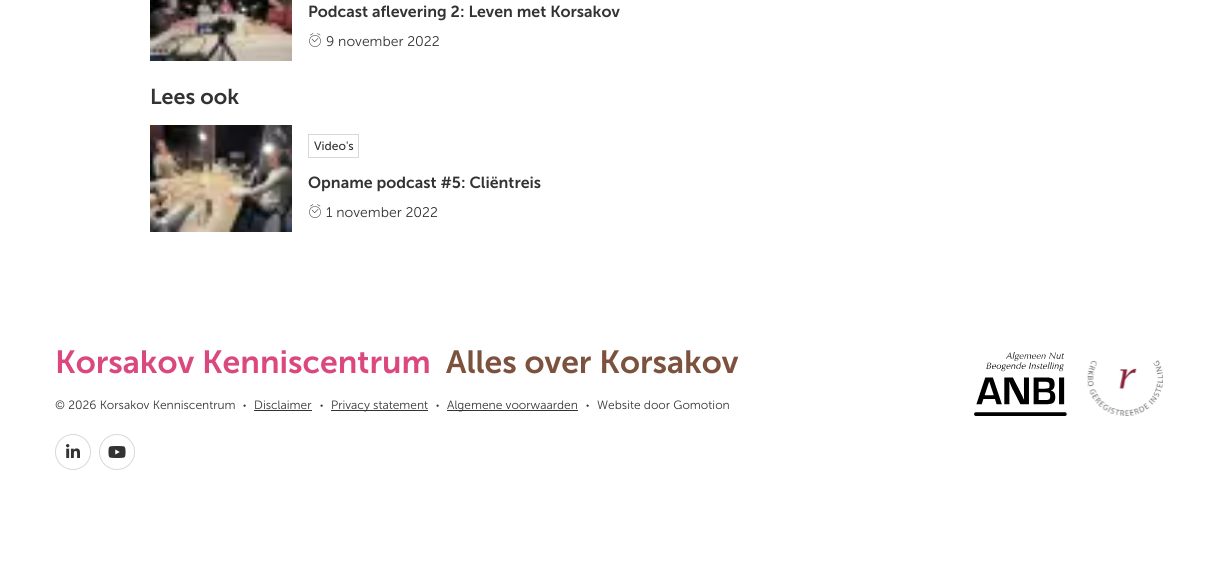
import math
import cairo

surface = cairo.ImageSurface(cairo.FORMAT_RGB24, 1217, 574)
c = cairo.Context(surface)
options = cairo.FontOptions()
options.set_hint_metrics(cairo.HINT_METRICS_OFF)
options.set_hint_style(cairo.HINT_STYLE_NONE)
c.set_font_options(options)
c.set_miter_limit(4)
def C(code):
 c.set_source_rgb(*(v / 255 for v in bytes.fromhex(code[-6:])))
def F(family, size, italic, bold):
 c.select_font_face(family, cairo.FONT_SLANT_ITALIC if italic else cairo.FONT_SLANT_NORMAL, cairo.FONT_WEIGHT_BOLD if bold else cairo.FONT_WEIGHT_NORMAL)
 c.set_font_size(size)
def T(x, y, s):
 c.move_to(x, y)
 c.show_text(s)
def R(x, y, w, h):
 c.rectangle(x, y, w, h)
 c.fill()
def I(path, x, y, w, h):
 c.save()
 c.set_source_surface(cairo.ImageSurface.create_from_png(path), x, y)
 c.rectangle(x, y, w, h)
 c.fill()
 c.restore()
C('ffffff')
c.paint()
I('1.png',150,0,142,61)
F('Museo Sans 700 SemiBold',16,0,0)
C('333333')
T(308,17,'Podcast aflevering 2: Leven met Korsakov')
I('2.png',309,33,12,14)
F('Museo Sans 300 Light',14,0,0)
T(326,46,'9 november 2022')
F('Museo Sans 700 SemiBold',21.5,0,0)
T(150,104,'Lees ook')
I('3.png',150,125,142,107)
c.rectangle(308.5,134.5,50,23)
C('dcd7d5')
c.set_line_width(1)
c.stroke()
F('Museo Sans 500',12,0,0)
C('333333')
T(314,150,'Video\'s')
F('Museo Sans 700 SemiBold',16,0,0)
T(308,188,'Opname podcast #5: Cliëntreis')
I('2.png',309,204,12,14)
F('Museo Sans 300 Light',14,0,0)
T(326,217,'1 november 2022')
F('Museo Sans 700 SemiBold',32,0,0)
C('db487e')
T(55,373,'Korsakov Kenniscentrum')
C('7c513d')
T(446,373,'Alles over Korsakov')
F('Museo Sans 300 Light',12,0,0)
C('333333')
T(55,409,'© 2026 Korsakov Kenniscentrum')
F('Museo Sans 300 Light',8,0,0)
T(243,408,'•')
F('Museo Sans 300 Light',12,0,0)
T(254,409,'Disclaimer')
R(254,410,58,1)
F('Museo Sans 300 Light',8,0,0)
T(320,408,'•')
R(331,410,97,1)
F('Museo Sans 300 Light',12,0,0)
T(331,409,'Privacy statement')
F('Museo Sans 300 Light',8,0,0)
T(436,408,'•')
R(447,410,131,1)
F('Museo Sans 300 Light',12,0,0)
T(447,409,'Algemene voorwaarden')
F('Museo Sans 300 Light',8,0,0)
T(586,408,'•')
F('Museo Sans 300 Light',12,0,0)
T(597,409,'Website door Gomotion')
I('4.png',974,352,93,64)
I('5.png',1087,360,76,56)
c.arc(73,452,17.5,0,2 * math.pi)
C('dcd7d5')
c.stroke()
I('6.png',66,444,14,14)
c.arc(117,452,17.5,0,2 * math.pi)
c.stroke()
I('7.png',108,446,18,12)
surface.write_to_png('o.png')
